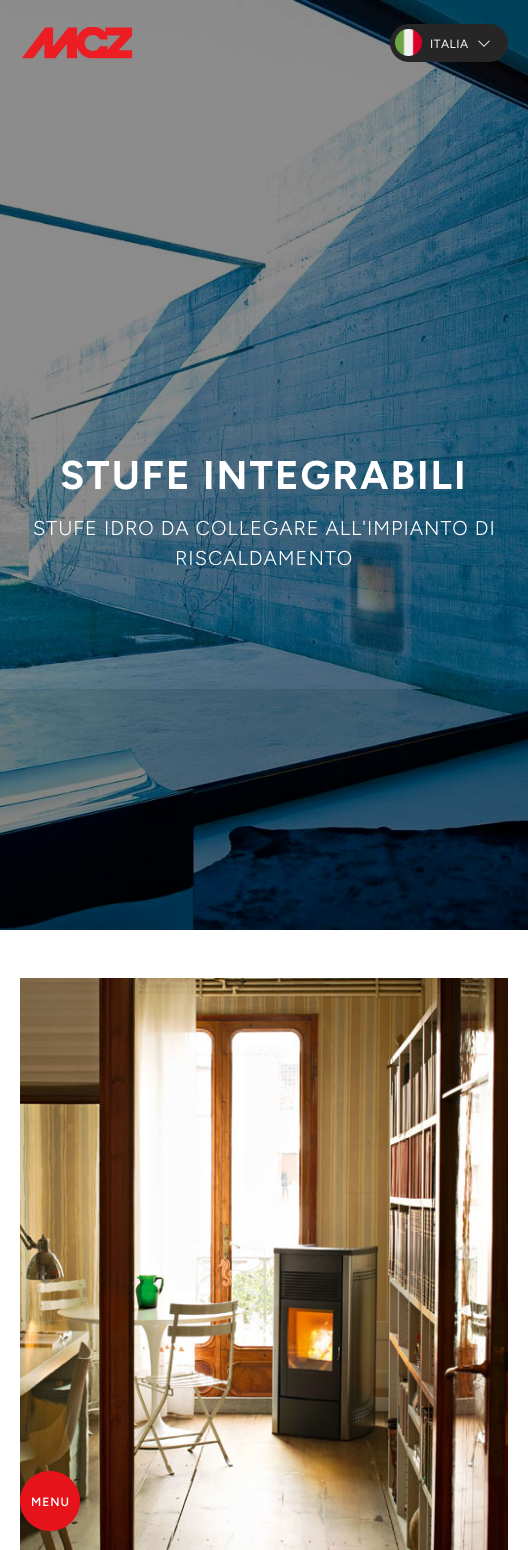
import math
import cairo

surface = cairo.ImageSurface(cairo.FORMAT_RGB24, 528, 1550)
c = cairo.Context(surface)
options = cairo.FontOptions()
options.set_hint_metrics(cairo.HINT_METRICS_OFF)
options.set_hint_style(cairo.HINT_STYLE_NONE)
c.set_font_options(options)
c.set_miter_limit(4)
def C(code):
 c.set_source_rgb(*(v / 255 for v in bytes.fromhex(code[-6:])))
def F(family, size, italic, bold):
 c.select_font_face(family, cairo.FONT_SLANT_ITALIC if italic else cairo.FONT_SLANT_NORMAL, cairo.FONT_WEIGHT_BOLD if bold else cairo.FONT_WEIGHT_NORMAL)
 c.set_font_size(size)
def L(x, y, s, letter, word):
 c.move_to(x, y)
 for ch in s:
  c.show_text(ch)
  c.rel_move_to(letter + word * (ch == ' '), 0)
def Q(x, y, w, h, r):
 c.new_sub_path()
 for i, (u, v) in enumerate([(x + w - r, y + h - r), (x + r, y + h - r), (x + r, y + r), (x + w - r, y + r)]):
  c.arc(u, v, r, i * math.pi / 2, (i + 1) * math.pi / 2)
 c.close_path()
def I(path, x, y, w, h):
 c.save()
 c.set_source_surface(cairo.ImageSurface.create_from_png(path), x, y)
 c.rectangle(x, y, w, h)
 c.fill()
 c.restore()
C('ffffff')
c.paint()
I('4.png',0,0,528,930)
I('1.png',22,27,111,32)
C('262626')
Q(390,24,118,38,19)
c.fill()
I('2.png',395,29,27,27)
F('Figtree',12,0,0)
C('ffffff')
L(430,48,'ITALIA',.5,0)
I('3.png',478,40,12,7)
F('Figtree',40,0,1)
L(60,489,'STUFE INTEGRABILI',2,0)
F('Figtree Light',20,0,0)
L(33,535,'STUFE IDRO DA COLLEGARE ALL\'IMPIANTO DI',1,0)
L(175,565,'RISCALDAMENTO',1,0)
I('5.png',20,978,488,572)
C('e7131a')
c.arc(50,1501,30,0,2 * math.pi)
c.fill()
F('Figtree Medium',12,0,0)
C('ffffff')
L(31,1506,'MENU',1,0)
surface.write_to_png('o.png')
